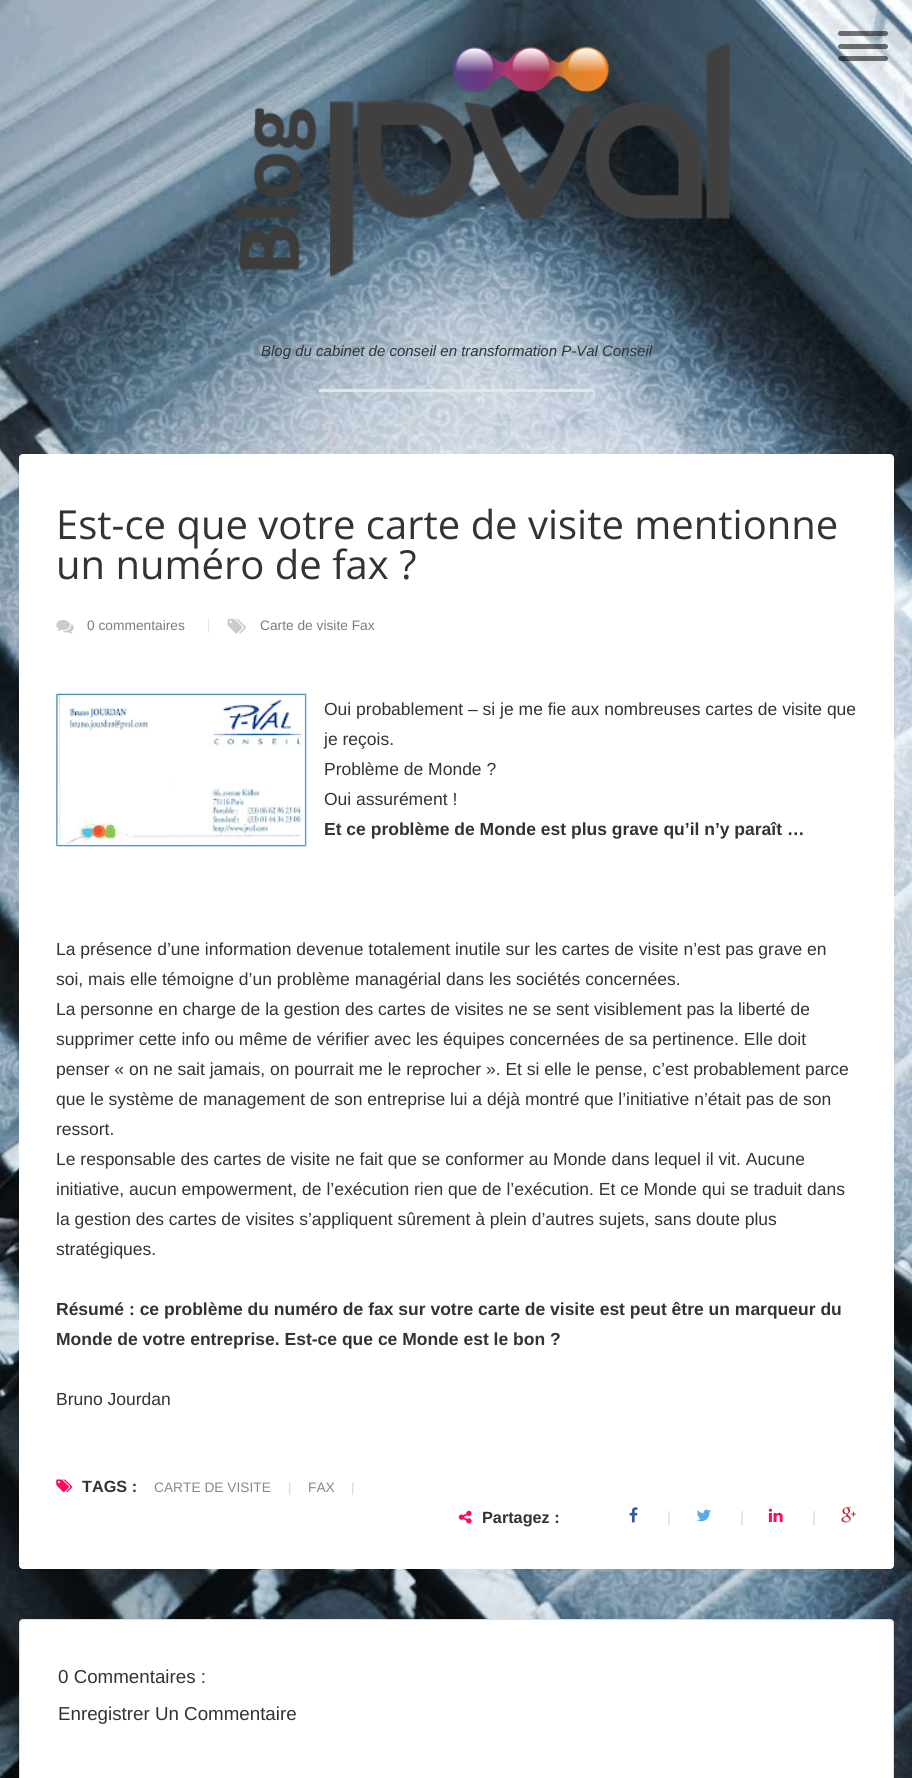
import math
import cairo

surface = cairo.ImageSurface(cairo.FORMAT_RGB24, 912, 1778)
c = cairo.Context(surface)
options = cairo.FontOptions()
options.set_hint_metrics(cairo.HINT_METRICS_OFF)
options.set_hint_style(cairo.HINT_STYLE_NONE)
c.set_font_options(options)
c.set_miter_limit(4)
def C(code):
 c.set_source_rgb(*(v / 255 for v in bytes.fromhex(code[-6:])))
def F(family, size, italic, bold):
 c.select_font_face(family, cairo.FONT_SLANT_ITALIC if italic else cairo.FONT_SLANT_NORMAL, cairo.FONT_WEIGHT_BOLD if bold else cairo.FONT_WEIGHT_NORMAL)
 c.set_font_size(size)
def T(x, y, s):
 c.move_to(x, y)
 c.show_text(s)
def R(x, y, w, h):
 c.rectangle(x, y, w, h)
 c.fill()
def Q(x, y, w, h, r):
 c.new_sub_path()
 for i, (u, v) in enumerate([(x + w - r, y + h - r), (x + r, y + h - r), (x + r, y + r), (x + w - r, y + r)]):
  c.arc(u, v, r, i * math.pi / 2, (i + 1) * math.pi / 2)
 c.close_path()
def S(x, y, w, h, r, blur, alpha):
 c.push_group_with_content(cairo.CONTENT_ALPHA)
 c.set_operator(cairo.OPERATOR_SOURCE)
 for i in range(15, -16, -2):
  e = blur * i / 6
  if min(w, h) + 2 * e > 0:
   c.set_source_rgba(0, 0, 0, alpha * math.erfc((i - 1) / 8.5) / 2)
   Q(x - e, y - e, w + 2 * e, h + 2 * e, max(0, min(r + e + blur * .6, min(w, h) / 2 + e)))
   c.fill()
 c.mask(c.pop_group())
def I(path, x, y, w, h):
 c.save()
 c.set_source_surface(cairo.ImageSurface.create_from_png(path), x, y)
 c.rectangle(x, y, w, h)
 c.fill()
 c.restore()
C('ffffff')
c.paint()
I('1.png',0,0,912,1778)
c.set_source_rgba(0,0,0,0.54)
Q(838,31,50,5,2.5)
c.fill()
Q(838,44,50,5,2.5)
c.fill()
Q(838,56,50,5,2.5)
c.fill()
I('2.png',235,43,495,234)
F('Liberation Sans',15,1,0)
C('333333')
T(261,356,'Blog du cabinet de conseil en transformation P-Val Conseil')
C('e5e5e5')
R(319,389,275,3)
C('ffffff')
Q(19,454,875,1115,4)
c.fill()
F('Open Sans',40,0,0)
C('333333')
T(56,539,'Est-ce que votre carte de visite mentionne')
T(56,579,'un numéro de fax ?')
C('e8e8e8')
R(208,618,1,15)
I('3.png',56,620,18,14)
F('Liberation Sans',13.75,0,0)
C('7c7c7c')
T(87,630,'0 commentaires')
I('4.png',227,618,19,16)
T(260,630,'Carte de visite Fax')
I('5.png',56,693,251,154)
F('Liberation Sans',17.5,0,0)
C('333333')
T(324,715,'Oui probablement – si je me fie aux nombreuses cartes de visite que')
T(324,745,'je reçois.')
T(324,775,'Problème de Monde ?')
T(324,805,'Oui assurément !')
F('Liberation Sans',17.5,0,1)
T(324,835,'Et ce problème de Monde est plus grave qu’il n’y paraît …')
F('Liberation Sans',17.5,0,0)
T(56,955,'La présence d’une information devenue totalement inutile sur les cartes de visite n’est pas grave en')
T(56,985,'soi, mais elle témoigne d’un problème managérial dans les sociétés concernées.')
T(56,1015,'La personne en charge de la gestion des cartes de visites ne se sent visiblement pas la liberté de')
T(56,1045,'supprimer cette info ou même de vérifier avec les équipes concernées de sa pertinence. Elle doit')
T(56,1075,'penser « on ne sait jamais, on pourrait me le reprocher ». Et si elle le pense, c’est probablement parce')
T(56,1105,'que le système de management de son entreprise lui a déjà montré que l’initiative n’était pas de son')
T(56,1135,'ressort.')
T(56,1165,'Le responsable des cartes de visite ne fait que se conformer au Monde dans lequel il vit. Aucune')
T(56,1195,'initiative, aucun empowerment, de l’exécution rien que de l’exécution. Et ce Monde qui se traduit dans')
T(56,1225,'la gestion des cartes de visites s’appliquent sûrement à plein d’autres sujets, sans doute plus')
T(56,1255,'stratégiques.')
F('Liberation Sans',17.5,0,1)
T(56,1315,'Résumé : ce problème du numéro de fax sur votre carte de visite est peut être un marqueur du')
T(56,1345,'Monde de votre entreprise. Est-ce que ce Monde est le bon ?')
F('Liberation Sans',17.5,0,0)
T(56,1405,'Bruno Jourdan')
I('6.png',56,1479,17,14)
F('Liberation Sans',16.25,0,1)
T(82,1492,'TAGS :')
F('Liberation Sans',13.75,0,0)
C('888888')
T(154,1492,'CARTE DE VISITE')
C('d6d6d6')
T(288,1492,'|')
C('888888')
T(308,1492,'FAX')
C('d6d6d6')
T(351,1492,'|')
I('7.png',458,1510,14,14)
F('Liberation Sans',16.25,0,1)
C('333333')
T(482,1523,'Partagez :')
I('8.png',629,1507,9,16)
F('Liberation Sans',15,0,0)
C('d6d6d6')
T(667,1522,'|')
I('9.png',697,1509,14,13)
T(740,1522,'|')
I('10.png',768,1508,15,14)
T(812,1522,'|')
I('11.png',841,1507,15,16)
C('000000')
S(19,1620,875,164,4,.5,.15)
C('ffffff')
Q(19.5,1619.5,874,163,3.5)
c.fill_preserve()
C('dfdfdf')
c.set_line_width(1)
c.stroke()
F('Liberation Sans',18.75,0,0)
C('333333')
T(58,1683,'0 Commentaires :')
T(58,1720,'Enregistrer Un Commentaire')
surface.write_to_png('o.png')
